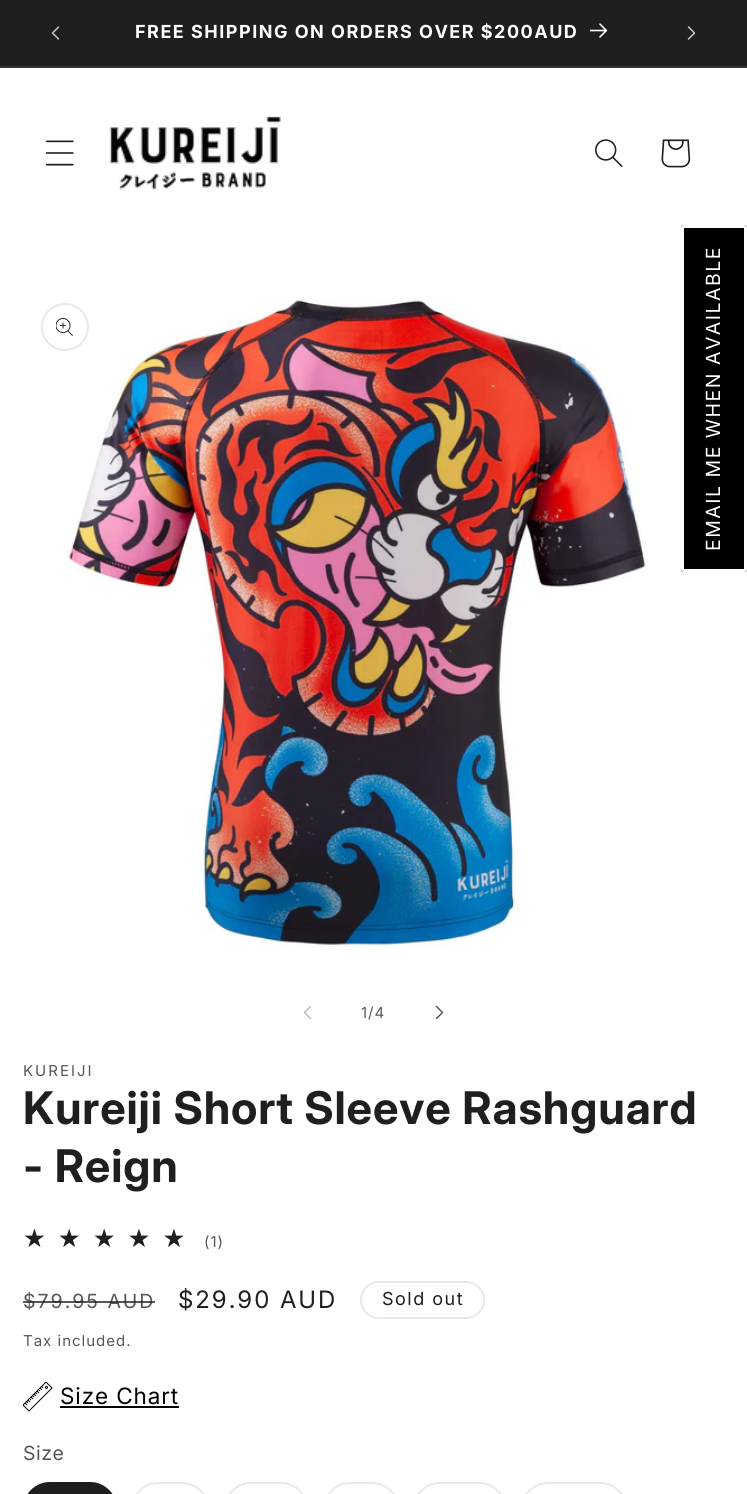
import math
import cairo

surface = cairo.ImageSurface(cairo.FORMAT_RGB24, 747, 1494)
c = cairo.Context(surface)
options = cairo.FontOptions()
options.set_hint_metrics(cairo.HINT_METRICS_OFF)
options.set_hint_style(cairo.HINT_STYLE_NONE)
c.set_font_options(options)
c.set_miter_limit(4)
def C(code):
 c.set_source_rgb(*(v / 255 for v in bytes.fromhex(code[-6:])))
def F(family, size, italic, bold):
 c.select_font_face(family, cairo.FONT_SLANT_ITALIC if italic else cairo.FONT_SLANT_NORMAL, cairo.FONT_WEIGHT_BOLD if bold else cairo.FONT_WEIGHT_NORMAL)
 c.set_font_size(size)
def L(x, y, s, letter, word):
 c.move_to(x, y)
 for ch in s:
  c.show_text(ch)
  c.rel_move_to(letter + word * (ch == ' '), 0)
def R(x, y, w, h):
 c.rectangle(x, y, w, h)
 c.fill()
def Q(x, y, w, h, r):
 c.new_sub_path()
 for i, (u, v) in enumerate([(x + w - r, y + h - r), (x + r, y + h - r), (x + r, y + r), (x + w - r, y + r)]):
  c.arc(u, v, r, i * math.pi / 2, (i + 1) * math.pi / 2)
 c.close_path()
def I(path, x, y, w, h):
 c.save()
 c.set_source_surface(cairo.ImageSurface.create_from_png(path), x, y)
 c.rectangle(x, y, w, h)
 c.fill()
 c.restore()
C('1f1f21')
c.paint()
C('313133')
R(0,66,747,2)
I('1.png',51,26,9,14)
F('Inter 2',18,0,1)
C('ffffff')
L(135,38,'FREE SHIPPING ON ORDERS OVER $200AUD',1.5,0)
I('2.png',590,23,18,15)
I('3.png',687,26,9,14)
R(0,68,747,1426)
I('4.png',45,140,29,26)
I('5.png',109,116,172,74)
I('6.png',595,139,28,28)
I('7.png',661,139,30,29)
C('000000')
c.new_path()
c.move_to(681,569)
c.line_to(681,228)
c.curve_to(681,226,682,225,684,225)
c.line_to(744,225)
c.curve_to(746,225,747,226,747,228)
c.line_to(747,569)
c.curve_to(747,571,746,572,744,572)
c.line_to(684,572)
c.curve_to(682,572,681,571,681,569)
c.close_path()
c.fill()
c.new_path()
c.move_to(682.5,569)
c.line_to(682.5,228)
c.curve_to(682.5,227,683,226.5,684,226.5)
c.line_to(744,226.5)
c.curve_to(745,226.5,745.5,227,745.5,228)
c.line_to(745.5,569)
c.curve_to(745.5,570,745,570.5,744,570.5)
c.line_to(684,570.5)
c.curve_to(683,570.5,682.5,570,682.5,569)
c.close_path()
C('ffffff')
c.set_line_width(3)
c.stroke()
F('Inter',19.5,0,0)
c.save()
c.translate(720,551)
c.rotate(-90 * math.pi / 180)
L(0,0,'EMAIL ME WHEN AVAILABLE',1.5,0)
c.restore()
I('9.png',67,298,579,650)
c.arc(65,327,23,0,2 * math.pi)
C('e9e9e9')
c.set_line_width(2)
c.stroke()
I('8.png',56,318,17,18)
I('10.png',303,1005,9,15)
F('Inter',15,0,0)
C('575759')
L(361,1018,'1/4',1,0)
I('11.png',435,1005,9,15)
L(23,1076,'KUREIJI',2,0)
F('Inter',45,0,1)
C('1f1f21')
L(23,1124,'Kureiji Short Sleeve Rashguard',.9,0)
L(23,1182,'- Reign',.9,0)
F('DejaVu Sans',25.5,0,0)
gradient = cairo.LinearGradient(23,1238,197,1238)
gradient.add_color_stop_rgba(1,0.122,0.122,0.129,1)
gradient.add_color_stop_rgba(1,0.867,0.867,0.871,1)
c.set_source(gradient)
L(23,1247,'★★★★★',12,0)
F('Inter',15,0,0)
C('575759')
L(204,1247,'(1)',1,0)
F('Inter',19.5,0,0)
L(23,1308,'$79.95 AUD',2,0)
c.set_source_rgba(0.122,0.122,0.129,0.75)
R(23,1301,132,2)
F('Inter 2',24,0,0)
C('1f1f21')
L(178,1308,'$29.90 AUD',2,0)
Q(361,1282,123,36,18)
C('e9e9e9')
c.stroke()
F('Inter',18,0,0)
C('1f1f21')
L(382,1305,'Sold out',1.5,0)
F('Inter',15,0,0)
C('575759')
L(23,1346,'Tax included.',1,0)
I('12.png',23,1382,30,30)
F('Inter',22.5,0,0)
C('000000')
L(60,1404,'Size Chart',.9,0)
R(60,1406,119,2)
F('Inter',19.5,0,0)
C('575759')
L(23,1460,'Size',.5,0)
C('1f1f21')
Q(23,1482,94,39,27)
c.fill()
Q(24,1483,92,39,26)
c.set_source_rgba(0.122,0.122,0.129,0.1)
c.stroke()
Q(132,1483,76,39,26)
C('e9e9e9')
c.stroke()
Q(225,1483,82,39,26)
c.stroke()
Q(324,1483,74,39,26)
c.stroke()
Q(414,1483,91,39,26)
c.stroke()
Q(522,1483,104,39,26)
c.stroke()
surface.write_to_png('o.png')
